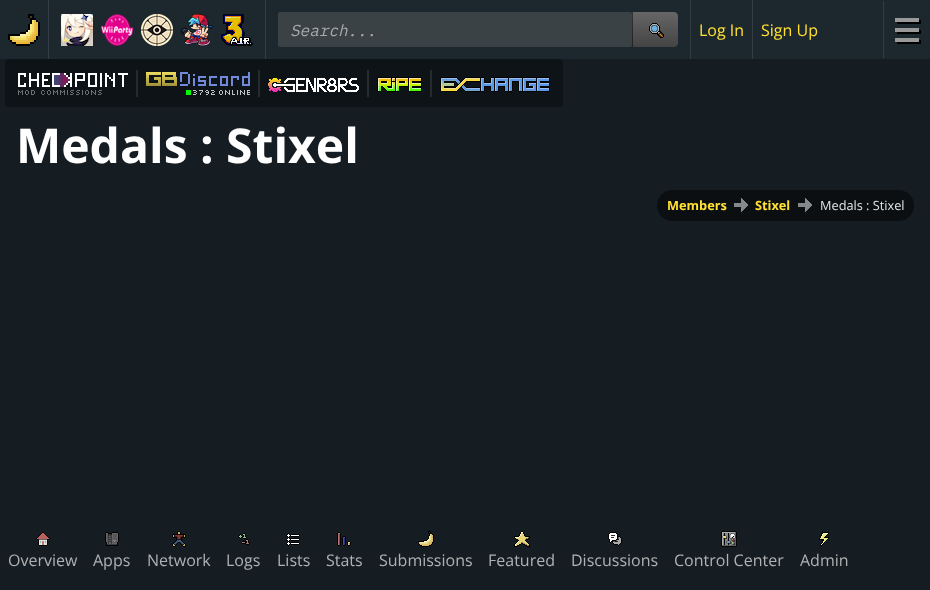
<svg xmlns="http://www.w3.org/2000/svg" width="930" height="590">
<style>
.a{font:italic 16px IBM Plex Mono;fill:#a6aaac}
.b{font:16px Open Sans;fill:#ffe033}
.c{font:bold 48px Open Sans;fill:#fff}
.d{font:bold 12.75px Open Sans;fill:#ffe033}
.e{font:12.75px Open Sans;fill:#e2e2e2}
.f{font:16px Open Sans;fill:#afb1b2}
</style>
<defs>
<linearGradient id="g1" gradientUnits="userSpaceOnUse" x1="656" y1="12" x2="656" y2="47"><stop offset="0" stop-color="#666"/><stop offset="1" stop-color="#444"/></linearGradient>
<linearGradient id="g2" gradientUnits="userSpaceOnUse" x1="656" y1="12" x2="656" y2="47"><stop offset="0" stop-color="#333"/><stop offset="1" stop-color="#222"/></linearGradient>
</defs>
<rect width="100%" height="100%" fill="#151d23"/>
<path fill="#1c272e" d="M0 0h930v59H0z"/>
<image href="1.png" x="8" y="14" width="32" height="32"/>
<path fill="#333d43" d="M48 0h1v59H48z"/>
<image href="2.png" x="61" y="14" width="32" height="32"/>
<image href="3.png" x="101" y="14" width="32" height="32"/>
<image href="4.png" x="141" y="14" width="32" height="32"/>
<image href="5.png" x="181" y="14" width="32" height="32"/>
<image href="6.png" x="221" y="14" width="32" height="32"/>
<path fill="#333d43" d="M265 0h1v59H265z"/>
<rect fill="#3a4246" x="278" y="12" width="354" height="35" rx="2"/>
<path fill="url(#g1)" d="M632 12h42c2 0 4 2 4 4v27c0 2-2 4-4 4h-42z"/>
<path fill="url(#g2)" d="M632 12h1v35H632z"/>
<image href="7.png" x="649" y="23" width="15" height="15"/>
<path fill="#333d43" d="M690 0h1v59H690z"/>
<path fill="#333d43" d="M752 0h1v59H752z"/>
<path fill="#333d43" d="M883 1h1v57H883z"/>
<image href="8.png" x="895" y="18" width="26" height="26"/>
<rect fill="#0b0f12" x="657" y="190" width="257" height="31" rx="15.5"/>
<image href="9.png" x="734" y="198" width="14" height="14"/>
<image href="9.png" x="798" y="198" width="14" height="14"/>
<image href="10.png" x="36" y="532" width="14" height="14"/>
<image href="11.png" x="105" y="532" width="14" height="14"/>
<image href="12.png" x="172" y="531" width="14" height="16"/>
<image href="13.png" x="238" y="533" width="12" height="12"/>
<image href="14.png" x="286" y="533" width="14" height="13"/>
<image href="15.png" x="337" y="532" width="14" height="14"/>
<image href="16.png" x="418" y="531" width="16" height="16"/>
<image href="17.png" x="514" y="531" width="16" height="16"/>
<image href="18.png" x="608" y="532" width="14" height="14"/>
<image href="19.png" x="721" y="531" width="16" height="16"/>
<image href="20.png" x="819" y="532" width="10" height="14"/>
<rect fill="#0e1317" x="5" y="59" width="558" height="48" rx="4"/>
<image href="21.png" x="18" y="73" width="110" height="22"/>
<path fill="#262b2e" d="M136 70h2v27H136z"/>
<image href="22.png" x="146" y="72" width="104" height="14"/>
<path fill="#00ff03" d="M186 90h5v5H186z"/>
<image href="23.png" x="193" y="90" width="4" height="5"/>
<image href="24.png" x="199" y="90" width="4" height="5"/>
<image href="25.png" x="205" y="90" width="4" height="5"/>
<image href="26.png" x="211" y="90" width="4" height="5"/>
<image href="27.png" x="219" y="90" width="31" height="5"/>
<path fill="#262b2e" d="M258 70h2v27H258z"/>
<image href="28.png" x="268" y="78" width="91" height="14"/>
<path fill="#262b2e" d="M367 70h2v27H367z"/>
<image href="29.png" x="377" y="77" width="45" height="15"/>
<path fill="#262b2e" d="M430 70h2v27H430z"/>
<image href="30.png" x="440" y="77" width="110" height="15"/>
<text class="a" x="290" y="36">Search...</text>
<text class="b" x="699" y="36">Log In</text>
<text class="b" x="761" y="36">Sign Up</text>
<text class="c" x="16" y="163">Medals : Stixel</text>
<text class="d" x="667" y="210">Members</text>
<text class="d" x="755" y="210">Stixel</text>
<text class="e" x="820" y="210">Medals : Stixel</text>
<text class="f" x="8" y="566">Overview</text>
<text class="f" x="93" y="566">Apps</text>
<text class="f" x="147" y="566">Network</text>
<text class="f" x="226" y="566">Logs</text>
<text class="f" x="277" y="566">Lists</text>
<text class="f" x="326" y="566">Stats</text>
<text class="f" x="379" y="566">Submissions</text>
<text class="f" x="488" y="566">Featured</text>
<text class="f" x="571" y="566">Discussions</text>
<text class="f" x="674" y="566">Control Center</text>
<text class="f" x="800" y="566">Admin</text>
</svg>
